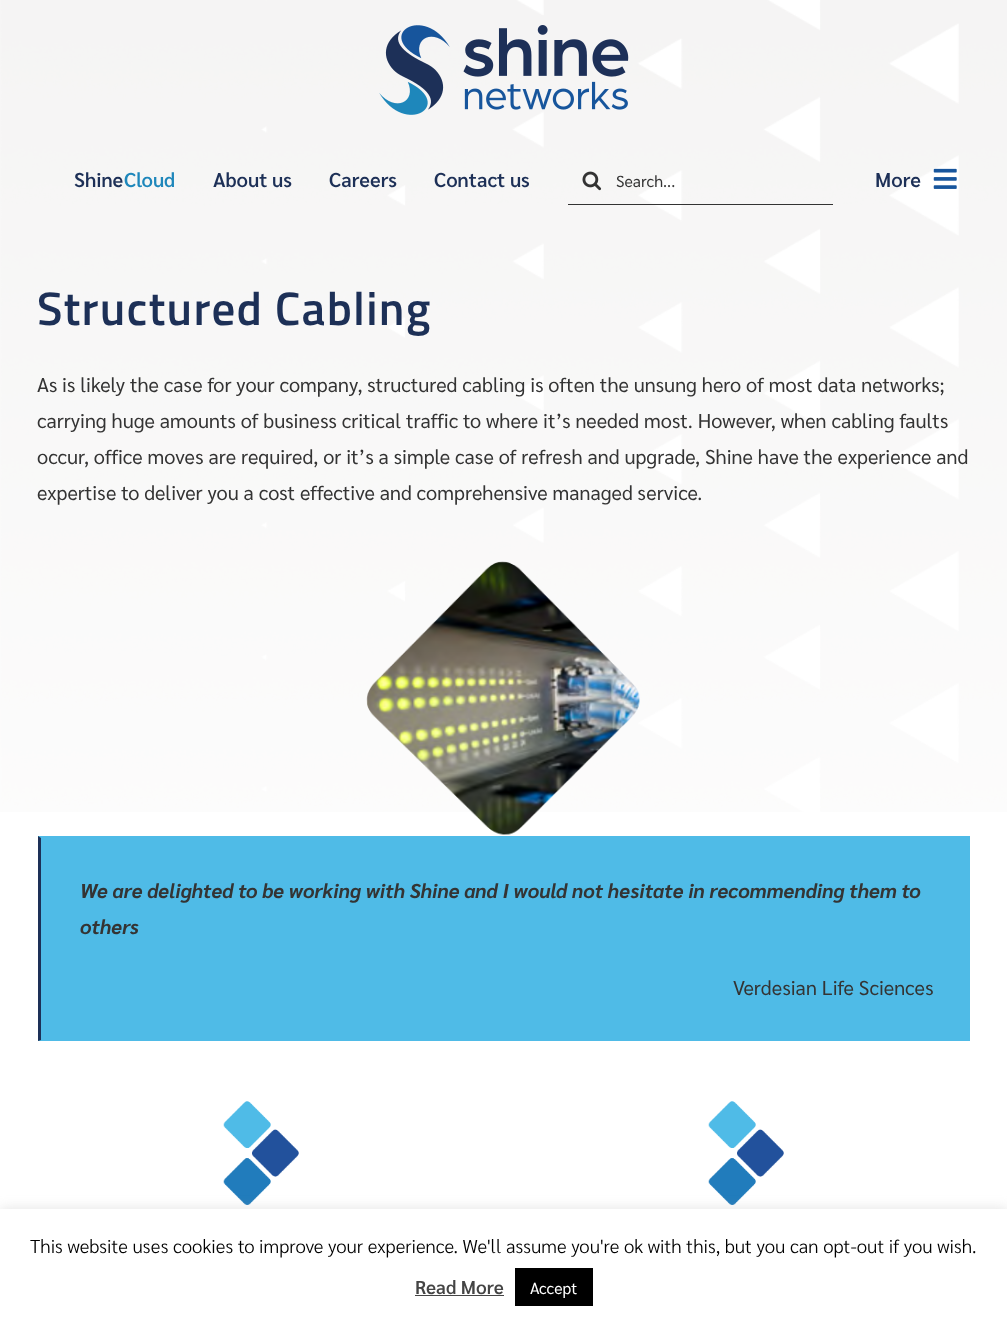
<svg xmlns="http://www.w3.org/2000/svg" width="1007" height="1321">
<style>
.a{font:600 20px Sarabun;fill:#1d3057}
.b{font:600 20px Sarabun;fill:#1e87bb}
.c{font:16px Sarabun;fill:#343434}
.d{font:600 47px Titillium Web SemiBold;letter-spacing:1.25px;fill:#1d3057}
.e{font:20px Sarabun;fill:#343434}
.f{font:italic bold 20px Sarabun;fill:#343434}
.g{font:300 18.75px Sarabun;fill:#000}
.h{font:600 18.75px Sarabun;fill:#444}
.i{font:16px Sarabun;fill:#fff}
</style>
<rect width="100%" height="100%" fill="#fff"/>
<image href="4.png" x="0" y="0" width="1007" height="812"/>
<image href="1.png" x="379" y="25" width="250" height="90"/>
<image href="2.png" x="582" y="171" width="20" height="20"/>
<path fill="#333" d="M568 204h265v1H568z"/>
<image href="3.png" x="933" y="168" width="24" height="21"/>
<image href="5.png" x="366" y="561" width="274" height="274"/>
<path fill="#4fbbe7" d="M38 836h932v205H38z"/>
<path fill="#1d3057" d="M38 1041v-205l3 2v202z"/>
<image href="6.png" x="223" y="1101" width="76" height="104"/>
<image href="6.png" x="708" y="1101" width="76" height="104"/>
<path fill="#acabab4d" filter="blur(6px)" d="M0 1208h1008v112H0z"/>
<path fill="#fff" d="M0 1209h1007v112H0z"/>
<path fill="#444" d="M415 1295h89v1H415z"/>
<path fill="#000" d="M515 1268h78v38H515z"/>
<text class="a" x="74" y="187">Shine</text>
<text class="b" x="124" y="187">Cloud</text>
<text class="a" x="213" y="187">About us</text>
<text class="a" x="329" y="187">Careers</text>
<text class="a" x="434" y="187">Contact us</text>
<text class="c" x="616" y="187">Search...</text>
<text class="a" x="875" y="187">More</text>
<text class="d" x="37" y="325">Structured Cabling</text>
<text class="e" x="37" y="392">As is likely the case for your company, structured cabling is often the unsung hero of most data networks;</text>
<text class="e" x="37" y="428">carrying huge amounts of business critical traffic to where it’s needed most. However, when cabling faults</text>
<text class="e" x="37" y="464">occur, office moves are required, or it’s a simple case of refresh and upgrade, Shine have the experience and</text>
<text class="e" x="37" y="500">expertise to deliver you a cost effective and comprehensive managed service.</text>
<text class="f" x="80" y="898">We are delighted to be working with Shine and I would not hesitate in recommending them to</text>
<text class="f" x="80" y="934">others</text>
<text class="e" x="733" y="995">Verdesian Life Sciences</text>
<text class="g" x="30" y="1253">This website uses cookies to improve your experience. We'll assume you're ok with this, but you can opt-out if you wish.</text>
<text class="h" x="415" y="1294">Read More</text>
<text class="i" x="530" y="1294">Accept</text>
</svg>
